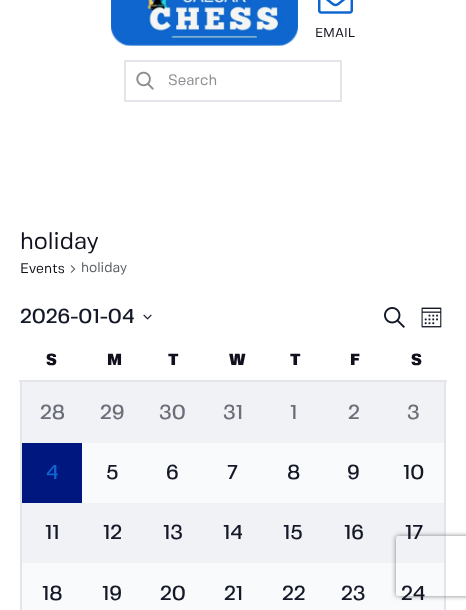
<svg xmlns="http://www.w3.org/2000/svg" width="466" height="610">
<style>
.a{font:13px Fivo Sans;fill:#12101c}
.b{font:15px Fivo Sans;fill:#8b8d91}
.c{font:24px Fivo Sans;fill:#12101c}
.d{font:14px Fivo Sans;fill:#12101c}
.e{font:14px Fivo Sans;fill:#5a5e61}
.f{font:500 20px Fivo Sans;fill:#141827}
.g{font:900 16px Fivo Sans;fill:#12101c}
.h{font:500 20px Fivo Sans;fill:#6c6f79}
.i{font:500 20px Fivo Sans;fill:#0e65ce}
</style>
<defs>
<clipPath id="clip1"><path d="M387 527h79v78h-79zm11 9h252c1 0 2 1 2 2v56c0 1-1 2-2 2h-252c-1 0-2-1-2-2v-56c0-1 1-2 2-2z" clip-rule="evenodd"/></clipPath>
</defs>
<rect width="100%" height="100%" fill="#fff"/>
<image href="1.png" x="111" y="0" width="187" height="46"/>
<image href="2.png" x="318" y="0" width="35" height="14"/>
<path fill="none" stroke="#e3e5ea" stroke-width="2" d="M125 61h216v40H125z"/>
<image href="3.png" x="136" y="71" width="18" height="19"/>
<image href="4.png" x="70" y="265" width="6" height="8"/>
<image href="5.png" x="143" y="314" width="9" height="6"/>
<image href="6.png" x="384" y="307" width="21" height="21"/>
<image href="7.png" x="421" y="307" width="21" height="21"/>
<path fill="#e3e5ea" d="M19 380h428v2H19z"/>
<path fill="#e3e5ea" d="M444 382h2v228H444z"/>
<path fill="#e3e5ea" d="M20 382h2v228H20z"/>
<path fill="#f0f2f5" d="M22 382h422v61H22z"/>
<path fill="#001780" d="M22 443h60v60H22z"/>
<path fill="#f9fafb" d="M82 443h362v60H82z"/>
<path fill="#f0f2f5" d="M22 503h422v60H22z"/>
<path fill="#f9fafb" d="M22 563h422v47H22z"/>
<g clip-path="url(#clip1)">
<rect fill="#808080" filter="blur(2.5px)" x="396" y="536" width="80" height="60" rx="2"/>
</g>
<text class="a" x="315" y="37">EMAIL</text>
<text class="b" x="168" y="85">Search</text>
<text class="c" x="20" y="249">holiday</text>
<text class="d" x="20" y="273">Events</text>
<text class="e" x="81" y="272">holiday</text>
<text class="f" x="20" y="323">2026-01-04</text>
<text class="g" x="46" y="365">S</text>
<text class="g" x="107" y="365">M</text>
<text class="g" x="168" y="365">T</text>
<text class="g" x="229" y="365">W</text>
<text class="g" x="290" y="365">T</text>
<text class="g" x="350" y="365">F</text>
<text class="g" x="411" y="365">S</text>
<text class="h" x="40" y="419">28</text>
<text class="h" x="100" y="419">29</text>
<text class="h" x="159" y="419">30</text>
<text class="h" x="223" y="419">31</text>
<text class="h" x="290" y="419">1</text>
<text class="h" x="348" y="419">2</text>
<text class="h" x="407" y="419">3</text>
<text class="i" x="46" y="479">4</text>
<text class="f" x="106" y="479">5</text>
<text class="f" x="166" y="479">6</text>
<text class="f" x="227" y="479">7</text>
<text class="f" x="287" y="479">8</text>
<text class="f" x="347" y="479">9</text>
<text class="f" x="403" y="479">10</text>
<text class="f" x="45" y="539">11</text>
<text class="f" x="103" y="539">12</text>
<text class="f" x="163" y="539">13</text>
<text class="f" x="223" y="539">14</text>
<text class="f" x="283" y="539">15</text>
<text class="f" x="344" y="539">16</text>
<text class="f" x="405" y="539">17</text>
<text class="f" x="42" y="600">18</text>
<text class="f" x="102" y="600">19</text>
<text class="f" x="160" y="600">20</text>
<text class="f" x="224" y="600">21</text>
<text class="f" x="282" y="600">22</text>
<text class="f" x="341" y="600">23</text>
<text class="f" x="401" y="600">24</text>
</svg>
